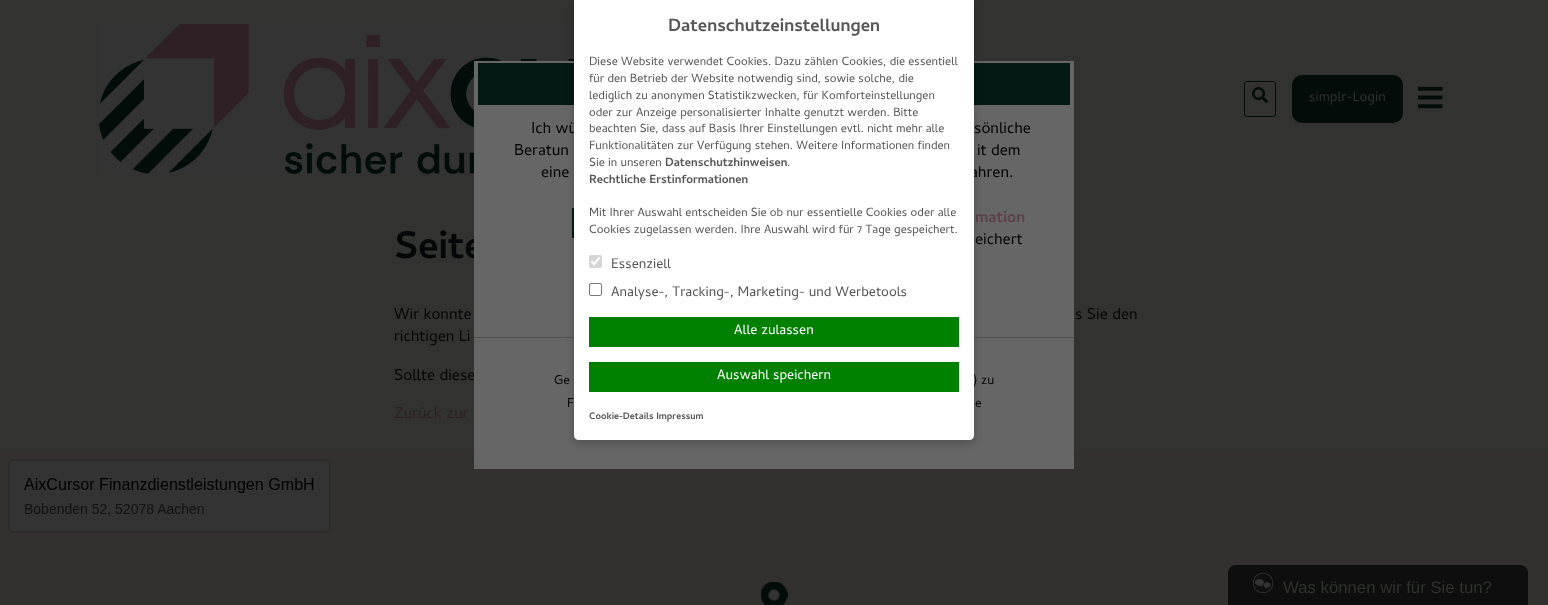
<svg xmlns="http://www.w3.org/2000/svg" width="1548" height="605">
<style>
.a{font:14px Cambay;fill:#2f322e}
.b{font:bold 39px Cambay;fill:#050607}
.c{font:16px Cambay;fill:#050607}
.d{font:16px Cambay;fill:#2f2025}
.e{font:16px Cambay;fill:#000}
.f{font:bold 16px Cambay;fill:#5e404a}
.g{font:13px Cambay;fill:#000}
.h{font:bold 9.6px Cambay;fill:#555}
.i{font:14px Cambay;fill:#fff}
.j{font:14px Cambay;fill:#555}
.k{font:12px Cambay;fill:#555}
.l{font:bold 12px Cambay;fill:#555}
.m{font:bold 18px Cambay;fill:#555}
.n{font:16.75px Liberation Sans;fill:#2f322e}
</style>
<rect width="100%" height="100%" fill="#323231"/>
<image href="1.png" x="99" y="24" width="475" height="150"/>
<rect fill="none" stroke="#020d0a" x="1244.5" y="81.5" width="31" height="35" rx="2.5"/>
<image href="2.png" x="1252" y="87" width="16" height="16"/>
<rect fill="#020d0a" x="1292" y="75" width="111" height="48" rx="10"/>
<image href="3.png" x="1418" y="86" width="25" height="23"/>
<image href="4.png" x="0" y="451" width="1548" height="154"/>
<path fill="#0e0e0e" d="M1236 565h284c4.5 0 8 3.5 8 8v32h-300v-32c0-4.5 3.5-8 8-8z"/>
<image href="5.png" x="1253" y="573" width="20" height="20"/>
<text class="a" x="1309" y="101">simplr-Login</text>
<text class="b" x="394" y="258">Seite</text>
<text class="c" x="394" y="319">Wir konnte</text>
<text class="c" x="1075" y="319">s Sie den</text>
<text class="c" x="394" y="341">richtigen Li</text>
<text class="c" x="394" y="380">Sollte diese</text>
<text class="d" x="394" y="418">Zurück zur</text>
<path fill="#666" d="M474 61h600v408H474z"/>
<path fill="#041914" d="M478 63h592v42H478z"/>
<text class="e" x="531" y="133">Ich wü</text>
<text class="e" x="514" y="155">Beratun</text>
<text class="e" x="541" y="177">eine</text>
<path fill="#041914" d="M572 208h2v30H572z"/>
<text class="e" x="974" y="133">sönliche</text>
<text class="e" x="977" y="155">it dem</text>
<text class="e" x="970" y="177">ahren.</text>
<text class="f" x="975" y="222">mation</text>
<text class="e" x="975" y="244">eichert</text>
<path fill="#525252" d="M474 337h600v1H474z"/>
<rect fill="#00000033" filter="blur(4px)" x="574" y="4" width="400" height="440" rx="5"/>
<text class="g" x="554" y="384">Ge</text>
<text class="g" x="973" y="384">) zu</text>
<path fill="#fff" d="M574 0h400v435c0 3-2 5-5 5h-390c-3 0-5-2-5-5z"/>
<text class="h" x="589" y="419">Cookie-Details Impressum</text>
<path fill="#008000" d="M589 362h370v30H589z"/>
<text class="i" x="717" y="379">Auswahl speichern</text>
<path fill="#008000" d="M589 317h370v30H589z"/>
<text class="i" x="734" y="334">Alle zulassen</text>
<text class="j" x="611" y="296">Analyse-, Tracking-, Marketing- und Werbetools</text>
<rect fill="none" stroke="#767676" x="589.5" y="283.5" width="12" height="12" rx="1.5"/>
<text class="j" x="611" y="268">Essenziell</text>
<rect fill="#d6d6d6" x="589" y="255" width="13" height="13" rx="2"/>
<path fill="none" stroke="#fff" stroke-width="2.1" d="M591.5 261.5l2.5 2.5l5.5-6.5"/>
<text class="k" x="589" y="233">Cookies zugelassen werden. Ihre Auswahl wird für 7 Tage gespeichert.</text>
<text class="k" x="589" y="216">Mit Ihrer Auswahl entscheiden Sie ob nur essentielle Cookies oder alle</text>
<text class="l" x="589" y="183">Rechtliche Erstinformationen</text>
<text class="k" x="787" y="166">.</text>
<text class="l" x="665" y="166">Datenschutzhinweisen</text>
<text class="k" x="589" y="166">Sie in unseren</text>
<text class="k" x="589" y="149">Funktionalitäten zur Verfügung stehen. Weitere Informationen finden</text>
<text class="k" x="589" y="132">beachten Sie, dass auf Basis Ihrer Einstellungen evtl. nicht mehr alle</text>
<text class="k" x="589" y="116">oder zur Anzeige personalisierter Inhalte genutzt werden. Bitte</text>
<text class="k" x="589" y="99">lediglich zu anonymen Statistikzwecken, für Komforteinstellungen</text>
<text class="k" x="589" y="82">für den Betrieb der Website notwendig sind, sowie solche, die</text>
<text class="k" x="589" y="65">Diese Website verwendet Cookies. Dazu zählen Cookies, die essentiell</text>
<text class="m" x="668" y="31">Datenschutzeinstellungen</text>
<text class="g" x="567" y="407">F</text>
<text class="g" x="975" y="407">e</text>
<text class="n" x="1283" y="593">Was können wir für Sie tun?</text>
</svg>
